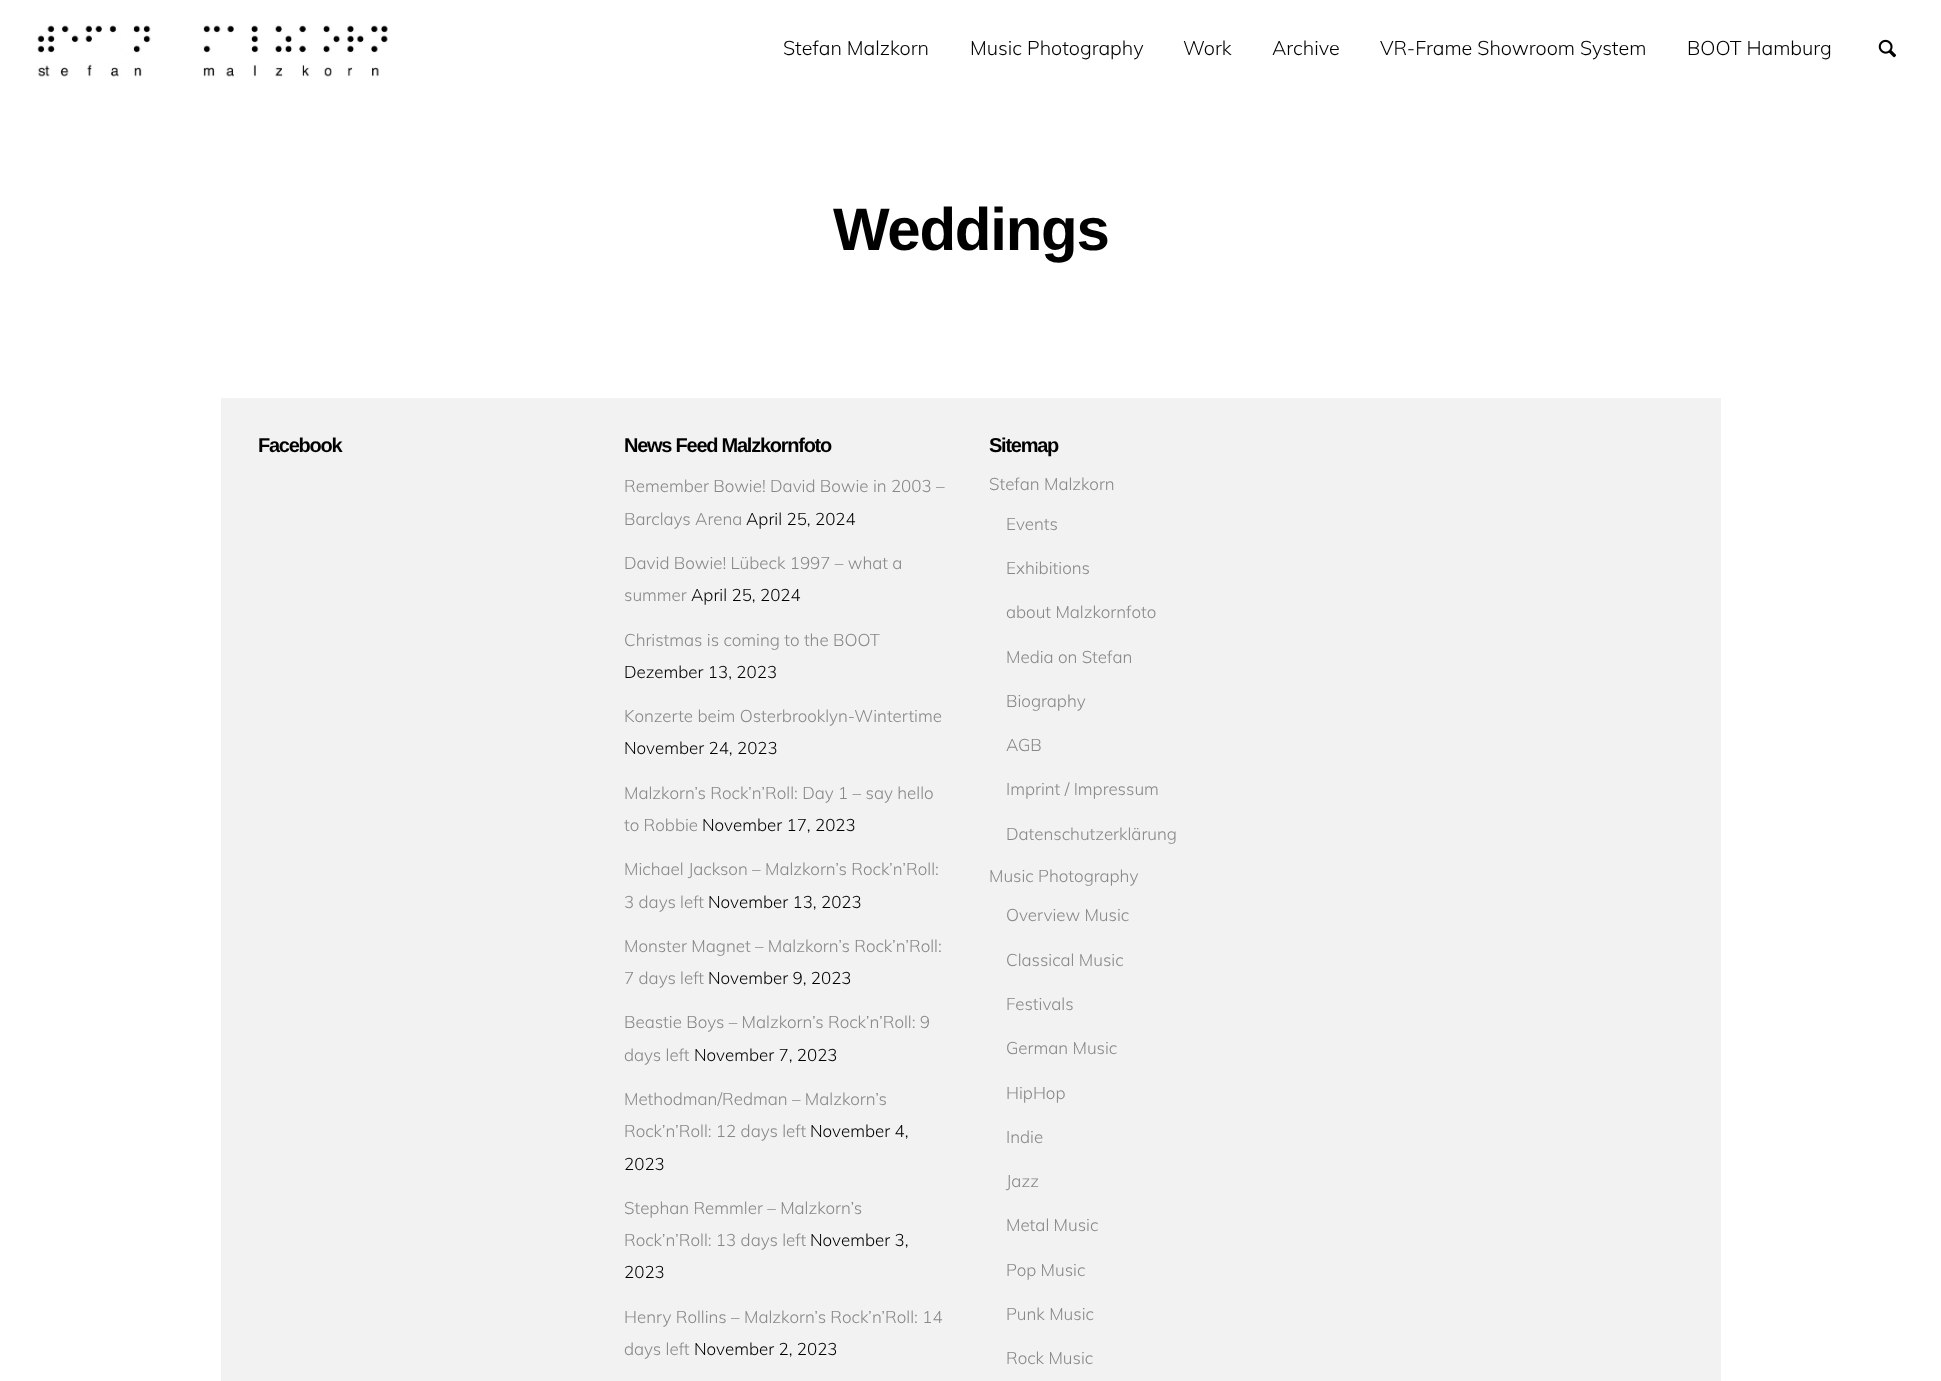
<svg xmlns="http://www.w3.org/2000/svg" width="1941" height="1381">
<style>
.a{font:300 19.75px Muli;fill:#000}
.b{font:bold 60px Liberation Sans;letter-spacing:-1.25px;fill:#000}
.c{font:bold 20px Liberation Sans;letter-spacing:-1.25px;fill:#000}
.d{font:300 17px Muli;fill:#888}
.e{font:300 17px Muli;fill:#000}
</style>
<rect width="100%" height="100%" fill="#fff"/>
<image href="1.png" x="37" y="25" width="351" height="52"/>
<image href="2.png" x="1878" y="39" width="18" height="19"/>
<path fill="#f2f2f2" d="M221 398h1500v983H221z"/>
<text class="a" x="783" y="55">Stefan Malzkorn</text>
<text class="a" x="970" y="55">Music Photography</text>
<text class="a" x="1183" y="55">Work</text>
<text class="a" x="1272" y="55">Archive</text>
<text class="a" x="1380" y="55">VR-Frame Showroom System</text>
<text class="a" x="1687" y="55">BOOT Hamburg</text>
<text class="b" x="833" y="250">Weddings</text>
<text class="c" x="258" y="452">Facebook</text>
<text class="c" x="624" y="452">News Feed Malzkornfoto</text>
<text class="d" x="624" y="492">Remember Bowie! David Bowie in 2003 –</text>
<text class="d" x="624" y="525">Barclays Arena</text>
<text class="e" x="746" y="525">April 25, 2024</text>
<text class="d" x="624" y="569">David Bowie! Lübeck 1997 – what a</text>
<text class="d" x="624" y="601">summer</text>
<text class="e" x="691" y="601">April 25, 2024</text>
<text class="d" x="624" y="646">Christmas is coming to the BOOT</text>
<text class="e" x="624" y="678">Dezember 13, 2023</text>
<text class="d" x="624" y="722">Konzerte beim Osterbrooklyn-Wintertime</text>
<text class="e" x="624" y="754">November 24, 2023</text>
<text class="d" x="624" y="799">Malzkorn’s Rock’n’Roll: Day 1 – say hello</text>
<text class="d" x="624" y="831">to Robbie</text>
<text class="e" x="702" y="831">November 17, 2023</text>
<text class="d" x="624" y="875">Michael Jackson – Malzkorn’s Rock’n’Roll:</text>
<text class="d" x="624" y="908">3 days left</text>
<text class="e" x="708" y="908">November 13, 2023</text>
<text class="d" x="624" y="952">Monster Magnet – Malzkorn’s Rock’n’Roll:</text>
<text class="d" x="624" y="984">7 days left</text>
<text class="e" x="708" y="984">November 9, 2023</text>
<text class="d" x="624" y="1028">Beastie Boys – Malzkorn’s Rock’n’Roll: 9</text>
<text class="d" x="624" y="1061">days left</text>
<text class="e" x="694" y="1061">November 7, 2023</text>
<text class="d" x="624" y="1105">Methodman/Redman – Malzkorn’s</text>
<text class="d" x="624" y="1137">Rock’n’Roll: 12 days left</text>
<text class="e" x="810" y="1137">November 4,</text>
<text class="e" x="624" y="1170">2023</text>
<text class="d" x="624" y="1214">Stephan Remmler – Malzkorn’s</text>
<text class="d" x="624" y="1246">Rock’n’Roll: 13 days left</text>
<text class="e" x="810" y="1246">November 3,</text>
<text class="e" x="624" y="1278">2023</text>
<text class="d" x="624" y="1323">Henry Rollins – Malzkorn’s Rock’n’Roll: 14</text>
<text class="d" x="624" y="1355">days left</text>
<text class="e" x="694" y="1355">November 2, 2023</text>
<text class="c" x="989" y="452">Sitemap</text>
<text class="d" x="989" y="490">Stefan Malzkorn</text>
<text class="d" x="1006" y="530">Events</text>
<text class="d" x="1006" y="574">Exhibitions</text>
<text class="d" x="1006" y="618">about Malzkornfoto</text>
<text class="d" x="1006" y="663">Media on Stefan</text>
<text class="d" x="1006" y="707">Biography</text>
<text class="d" x="1006" y="751">AGB</text>
<text class="d" x="1006" y="795">Imprint / Impressum</text>
<text class="d" x="1006" y="840">Datenschutzerklärung</text>
<text class="d" x="989" y="882">Music Photography</text>
<text class="d" x="1006" y="921">Overview Music</text>
<text class="d" x="1006" y="966">Classical Music</text>
<text class="d" x="1006" y="1010">Festivals</text>
<text class="d" x="1006" y="1054">German Music</text>
<text class="d" x="1006" y="1099">HipHop</text>
<text class="d" x="1006" y="1143">Indie</text>
<text class="d" x="1006" y="1187">Jazz</text>
<text class="d" x="1006" y="1231">Metal Music</text>
<text class="d" x="1006" y="1276">Pop Music</text>
<text class="d" x="1006" y="1320">Punk Music</text>
<text class="d" x="1006" y="1364">Rock Music</text>
</svg>
